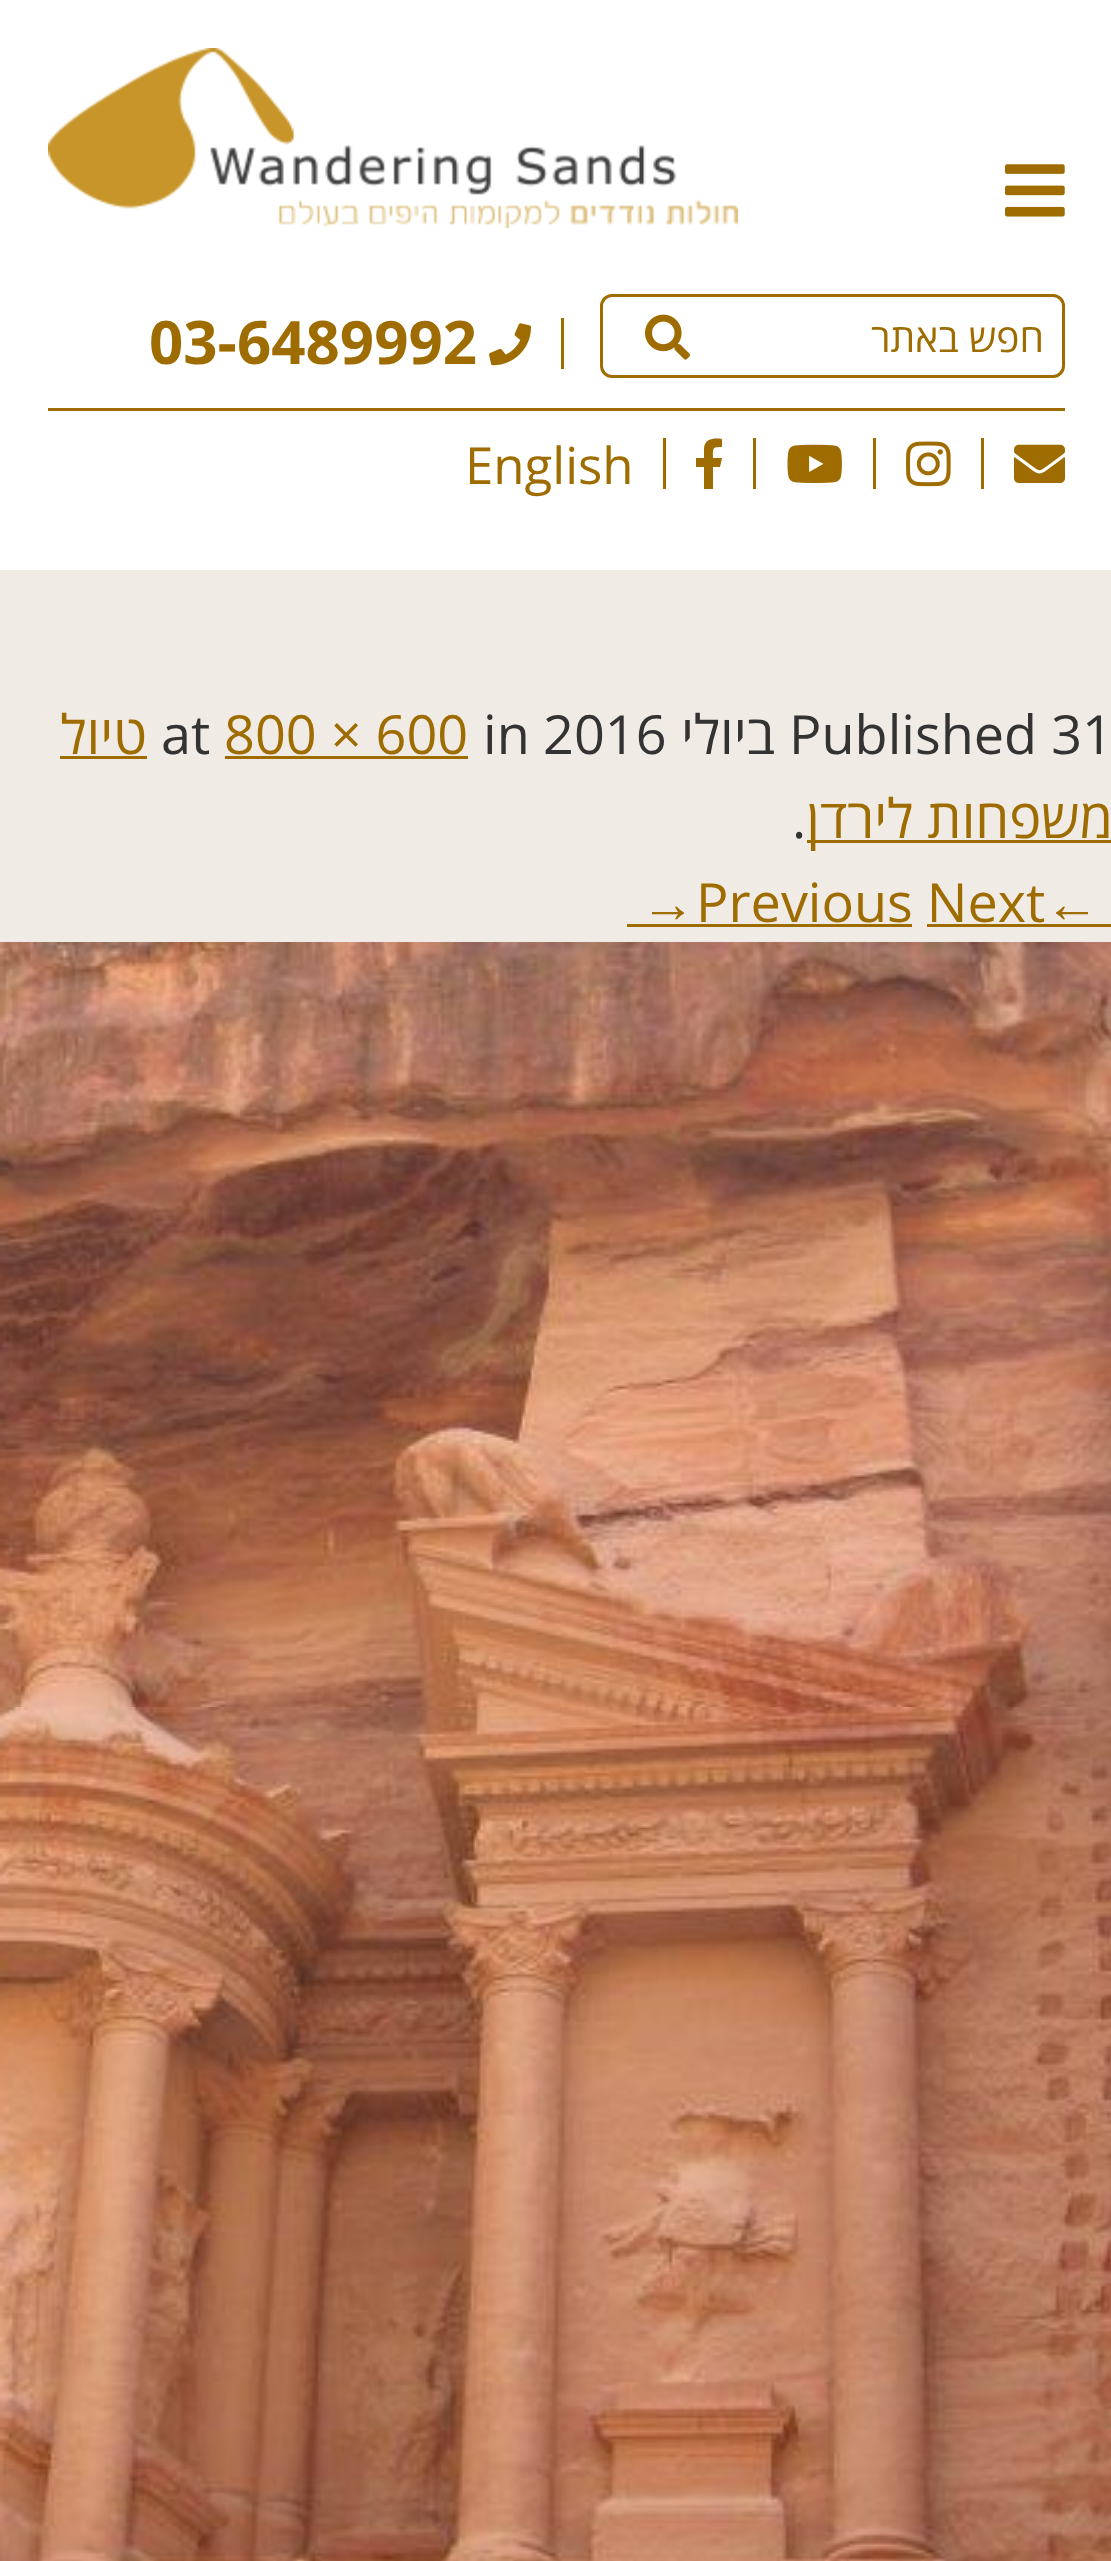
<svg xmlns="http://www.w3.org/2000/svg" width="1111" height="2561">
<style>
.a{font:bold 60px Open Sans;fill:#9e6c00}
.b{font:39px Open Sans;direction:rtl;fill:#9e6c00}
.c{font:51px Open Sans;fill:#9e6c00}
.d{font:54px Open Sans;direction:rtl;fill:#9e6c00}
.e{font:54px Open Sans;fill:#333}
.f{font:54px Open Sans;fill:#9e6c00}
.g{font:54px Open Sans;direction:rtl;fill:#333}
.h{font:54px Liberation Sans;fill:#9e6c00}
</style>
<rect width="100%" height="100%" fill="#fff"/>
<image href="1.png" x="48" y="48" width="690" height="180"/>
<image href="2.png" x="1005" y="164" width="60" height="53"/>
<path fill="#9e6c00" d="M48 408h1017v3H48z"/>
<path fill="#9e6c00" d="M561 318h3v51H561z"/>
<image href="3.png" x="489" y="323" width="42" height="43"/>
<rect fill="none" stroke="#9e6c00" stroke-width="3" x="601.5" y="295.5" width="462" height="81" rx="10.5"/>
<image href="4.png" x="645" y="314" width="45" height="46"/>
<path fill="#9e6c00" d="M663 438h3v51H663z"/>
<path fill="#9e6c00" d="M753 438h3v51H753z"/>
<path fill="#9e6c00" d="M704 489v-22h-8v-9h8v-10c1-10 11-10 18-9v8c-10 0-9 1-9 11h9l-2 9h-7v22z"/>
<path fill="#9e6c00" d="M873 438h3v51H873z"/>
<image href="5.png" x="787" y="444" width="55" height="39"/>
<path fill="#9e6c00" d="M981 438h3v51H981z"/>
<image href="6.png" x="906" y="441" width="45" height="46"/>
<image href="7.png" x="1014" y="444" width="51" height="39"/>
<path fill="#f0ebe5" d="M0 570h1111v372H0z"/>
<path fill="#9e6c00" d="M60 756h87v3H60z"/>
<path fill="#9e6c00" d="M225 756h243v3H225z"/>
<path fill="#9e6c00" d="M807 840h304v3H807z"/>
<path fill="#9e6c00" d="M627 924h285v3H627z"/>
<path fill="#9e6c00" d="M927 924h184v3H927z"/>
<image href="8.png" x="0" y="942" width="1111" height="1619"/>
<text class="a" x="149" y="364">03-6489992</text>
<text class="b" x="1044" y="352">חפש באתר</text>
<text class="c" x="465" y="484">English</text>
<text class="d" x="147" y="754">טיול</text>
<text class="e" x="161" y="754">at</text>
<text class="f" x="224" y="754">800 × 600</text>
<text class="e" x="483" y="754">in</text>
<text class="e" x="543" y="754">2016</text>
<text class="g" x="775" y="754">ביולי</text>
<text class="e" x="789" y="754">Published 31</text>
<text class="e" x="792" y="838">.</text>
<text class="d" x="1113" y="838">משפחות לירדן</text>
<text class="h" x="641" y="922">→</text>
<text class="f" x="696" y="922">Previous Next</text>
<text class="h" x="1045" y="922">←</text>
</svg>
